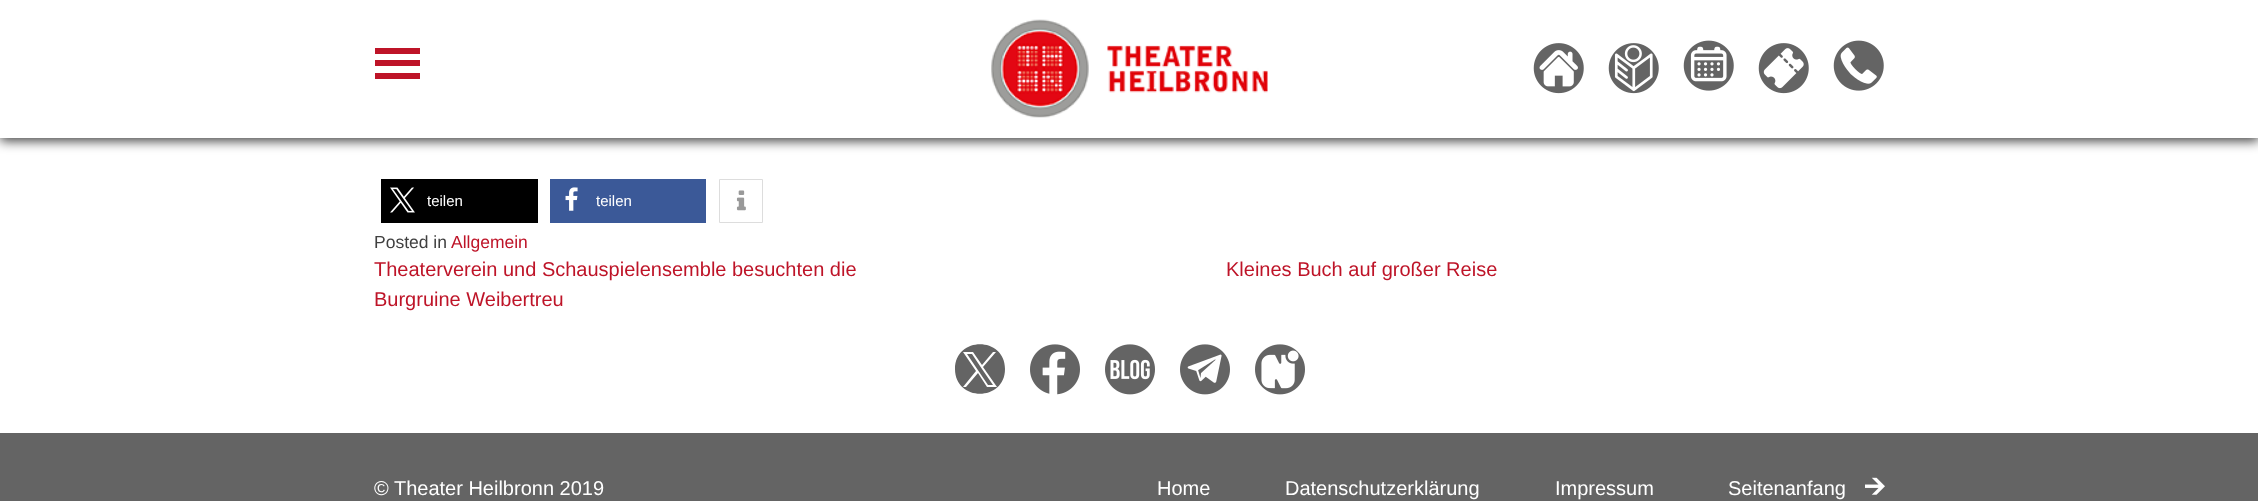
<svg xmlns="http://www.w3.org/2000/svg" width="2258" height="501">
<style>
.a{font:15px Liberation Sans;fill:#fff}
.b{font:17.5px Liberation Sans;fill:#404040}
.c{font:17.5px Liberation Sans;fill:#be1428}
.d{font:20px Liberation Sans;fill:#be1428}
.e{font:20px Liberation Sans;fill:#fff}
</style>
<rect width="100%" height="100%" fill="#fff"/>
<path fill="#000000bf" filter="blur(6px)" d="M0 4h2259v137H0z"/>
<path fill="#fff" d="M0 0h2258v138H0z"/>
<path fill="#be1428" d="M375 48h45v6H375z"/>
<path fill="#be1428" d="M375 60h45v6H375z"/>
<path fill="#be1428" d="M375 73h45v6H375z"/>
<image href="1.png" x="991" y="19" width="277" height="99"/>
<image href="2.png" x="1533" y="43" width="51" height="51"/>
<image href="3.png" x="1608" y="43" width="51" height="51"/>
<image href="4.png" x="1683" y="40" width="51" height="51"/>
<image href="5.png" x="1758" y="43" width="51" height="51"/>
<image href="6.png" x="1833" y="40" width="51" height="51"/>
<path fill="#000" d="M381 179h157v44H381z"/>
<image href="7.png" x="390" y="187" width="25" height="26"/>
<path fill="#3b5998" d="M550 179h156v44H550z"/>
<image href="8.png" x="565" y="187" width="13" height="24"/>
<path fill="none" stroke="#ddd" d="M719.5 179.5h43v43H719.5z"/>
<image href="9.png" x="736" y="190" width="10" height="21"/>
<path fill="#646464" d="M982 369l11 16h-5l-21-31h5zm23 0c0 33-50 33-50 0c0-33 50-33 50 0zm-8 18l-14-20l13-15h-3l-11 13l-9-13h-10l13 19l-13 16h3l12-14l9 14z"/>
<image href="10.png" x="1030" y="344" width="50" height="51"/>
<image href="11.png" x="1105" y="344" width="50" height="51"/>
<image href="12.png" x="1180" y="344" width="50" height="51"/>
<image href="13.png" x="1255" y="344" width="50" height="51"/>
<path fill="#646464" d="M0 433h2258v68H0z"/>
<image href="14.png" x="1865" y="477" width="20" height="18"/>
<text class="a" x="427" y="206">teilen</text>
<text class="a" x="596" y="206">teilen</text>
<text class="b" x="374" y="248">Posted in</text>
<text class="c" x="451" y="248">Allgemein</text>
<text class="d" x="374" y="276">Theaterverein und Schauspielensemble besuchten die</text>
<text class="d" x="374" y="306">Burgruine Weibertreu</text>
<text class="d" x="1226" y="276">Kleines Buch auf großer Reise</text>
<text class="e" x="374" y="495">© Theater Heilbronn 2019</text>
<text class="e" x="1157" y="495">Home</text>
<text class="e" x="1285" y="495">Datenschutzerklärung</text>
<text class="e" x="1555" y="495">Impressum</text>
<text class="e" x="1728" y="495">Seitenanfang</text>
</svg>
